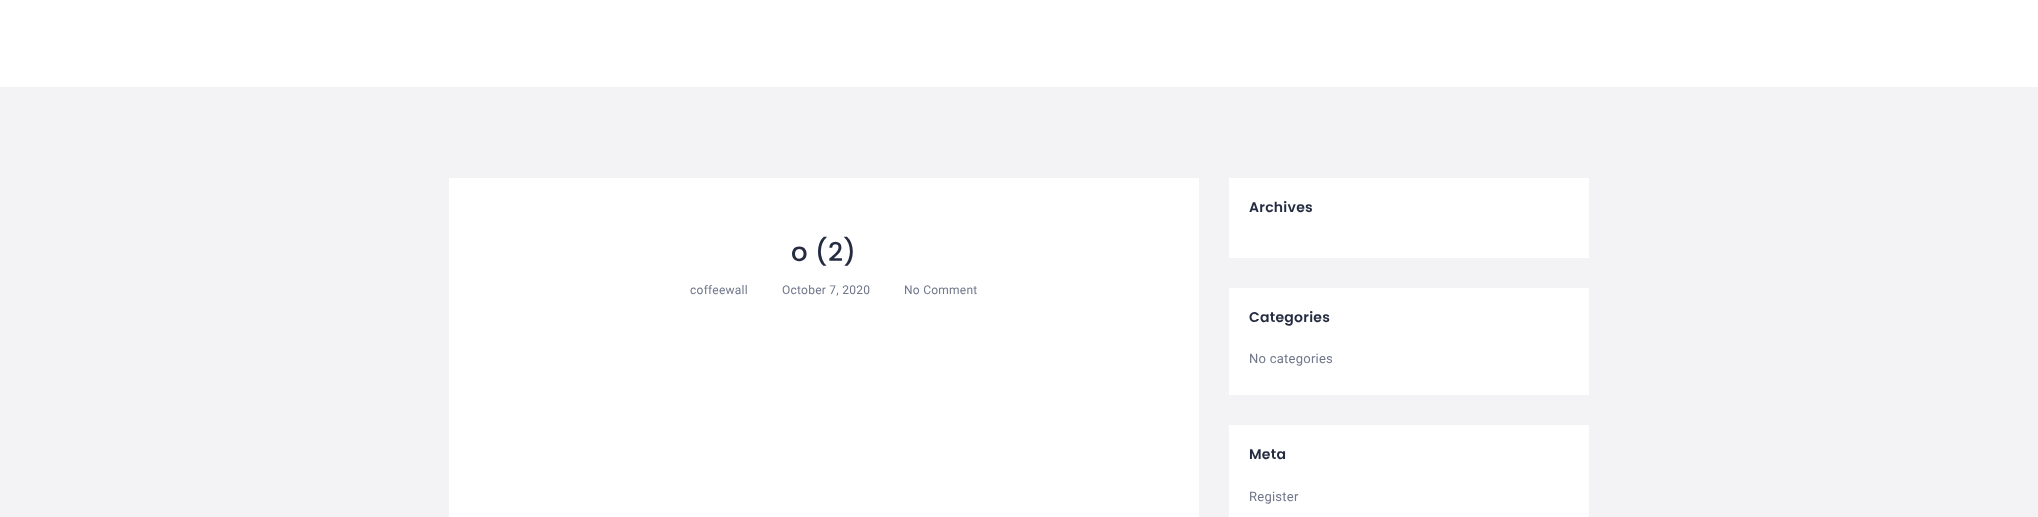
<svg xmlns="http://www.w3.org/2000/svg" width="2038" height="517">
<style>
.a{font:500 26px Poppins;letter-spacing:0.25px;fill:#252c41}
.b{font:12px Roboto;letter-spacing:0.25px;fill:#70778b}
.c{font:600 14px Poppins;letter-spacing:0.25px;fill:#252c41}
.d{font:13px Roboto;letter-spacing:0.25px;fill:#70778b}
</style>
<rect width="100%" height="100%" fill="#fff"/>
<path fill="#f3f3f6" d="M0 87h2038v430H0z"/>
<path fill="#fff" d="M449 178h750v339H449z"/>
<path fill="#fff" d="M1229 178h360v80H1229z"/>
<path fill="#fff" d="M1229 288h360v107H1229z"/>
<path fill="#fff" d="M1229 425h360v92H1229z"/>
<text class="a" x="791" y="261">o (2)</text>
<text class="b" x="690" y="294">coffeewall</text>
<text class="b" x="782" y="294">October 7, 2020</text>
<text class="b" x="904" y="294">No Comment</text>
<text class="c" x="1249" y="212">Archives</text>
<text class="c" x="1249" y="322">Categories</text>
<text class="d" x="1249" y="363">No categories</text>
<text class="c" x="1249" y="459">Meta</text>
<text class="d" x="1249" y="501">Register</text>
</svg>
